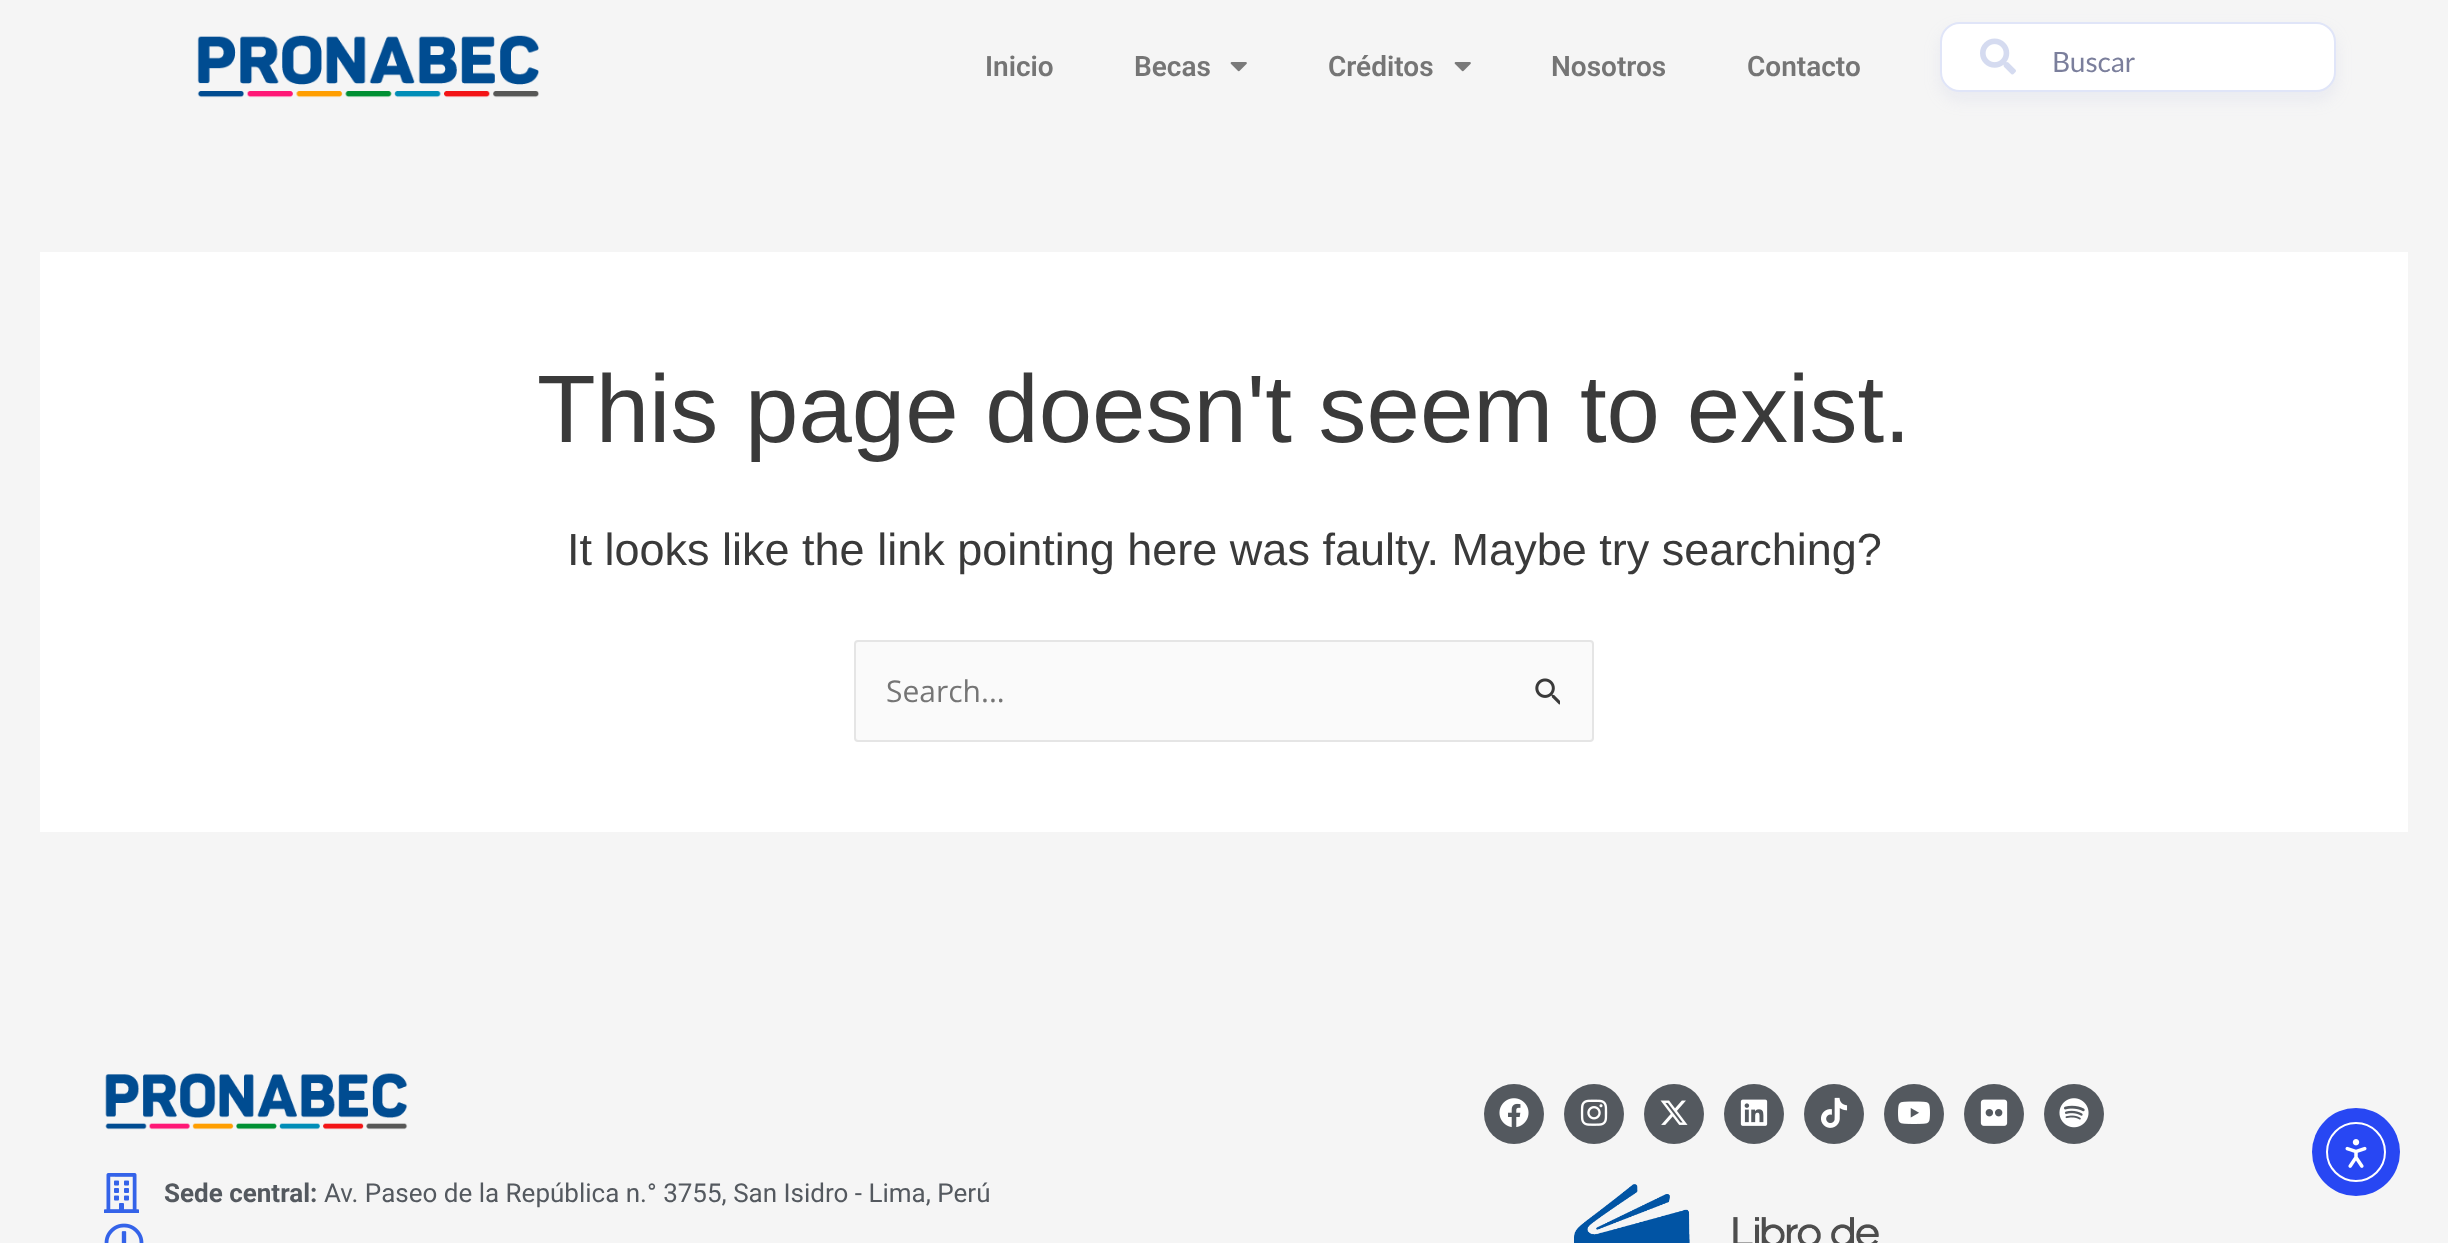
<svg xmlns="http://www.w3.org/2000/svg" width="2448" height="1243">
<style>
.a{font:600 28px Roboto;fill:#757575}
.b{font:28px Lato;fill:#7b7f9c}
.c{font:96px Liberation Sans;fill:#3a3a3a}
.d{font:45px Liberation Sans;fill:#3a3a3a}
.e{font:30px Open Sans;fill:#757575}
.f{font:bold 26px Roboto;fill:#54595f}
.g{font:26px Roboto;fill:#54595f}
</style>
<rect width="100%" height="100%" fill="#f5f5f5"/>
<image href="1.png" x="197" y="35" width="342" height="63"/>
<image href="2.png" x="1230" y="62" width="17" height="10"/>
<image href="2.png" x="1454" y="62" width="17" height="10"/>
<rect fill="#a5aed526" filter="blur(8px)" x="1940" y="30" width="396" height="70" rx="20"/>
<rect fill="#fff" stroke="#e0e5f8" stroke-width="2" x="1941" y="23" width="394" height="68" rx="19"/>
<image href="3.png" x="1980" y="38" width="36" height="37"/>
<path fill="#fff" d="M40 252h2368v580H40z"/>
<rect fill="#fafafa" stroke="#e5e5e5" stroke-width="2" x="855" y="641" width="738" height="100" rx="3"/>
<image href="4.png" x="1535" y="678" width="25" height="27"/>
<image href="5.png" x="105" y="1073" width="303" height="57"/>
<image href="6.png" x="104" y="1173" width="35" height="40"/>
<image href="7.png" x="104" y="1223" width="40" height="20"/>
<circle fill="#54595f" cx="1514" cy="1114" r="30"/>
<image href="8.png" x="1499" y="1098" width="30" height="30"/>
<circle fill="#54595f" cx="1594" cy="1114" r="30"/>
<image href="9.png" x="1580" y="1099" width="28" height="27"/>
<circle fill="#54595f" cx="1674" cy="1114" r="30"/>
<image href="10.png" x="1660" y="1100" width="28" height="25"/>
<circle fill="#54595f" cx="1754" cy="1114" r="30"/>
<image href="11.png" x="1740" y="1099" width="28" height="27"/>
<circle fill="#54595f" cx="1834" cy="1114" r="30"/>
<image href="12.png" x="1821" y="1097" width="27" height="31"/>
<circle fill="#54595f" cx="1914" cy="1114" r="30"/>
<image href="13.png" x="1898" y="1101" width="32" height="23"/>
<circle fill="#54595f" cx="1994" cy="1114" r="30"/>
<image href="14.png" x="1980" y="1099" width="28" height="27"/>
<circle fill="#54595f" cx="2074" cy="1114" r="30"/>
<image href="15.png" x="2059" y="1098" width="30" height="30"/>
<image href="16.png" x="1574" y="1184" width="305" height="59"/>
<circle fill="#2847f3" cx="2356" cy="1152" r="44"/>
<circle fill="none" stroke="#fff" stroke-width="2" cx="2356" cy="1152" r="29"/>
<image href="17.png" x="2345" y="1139" width="22" height="29"/>
<text class="a" x="985" y="76">Inicio</text>
<text class="a" x="1134" y="76">Becas</text>
<text class="a" x="1328" y="76">Créditos</text>
<text class="a" x="1551" y="76">Nosotros</text>
<text class="a" x="1747" y="76">Contacto</text>
<text class="b" x="2052" y="72">Buscar</text>
<text class="c" x="537" y="442">This page doesn't seem to exist.</text>
<text class="d" x="567" y="565">It looks like the link pointing here was faulty. Maybe try searching?</text>
<text class="e" x="886" y="702">Search...</text>
<text class="f" x="164" y="1202">Sede central:</text>
<text class="g" x="324" y="1202">Av. Paseo de la República n.° 3755, San Isidro - Lima, Perú</text>
</svg>
